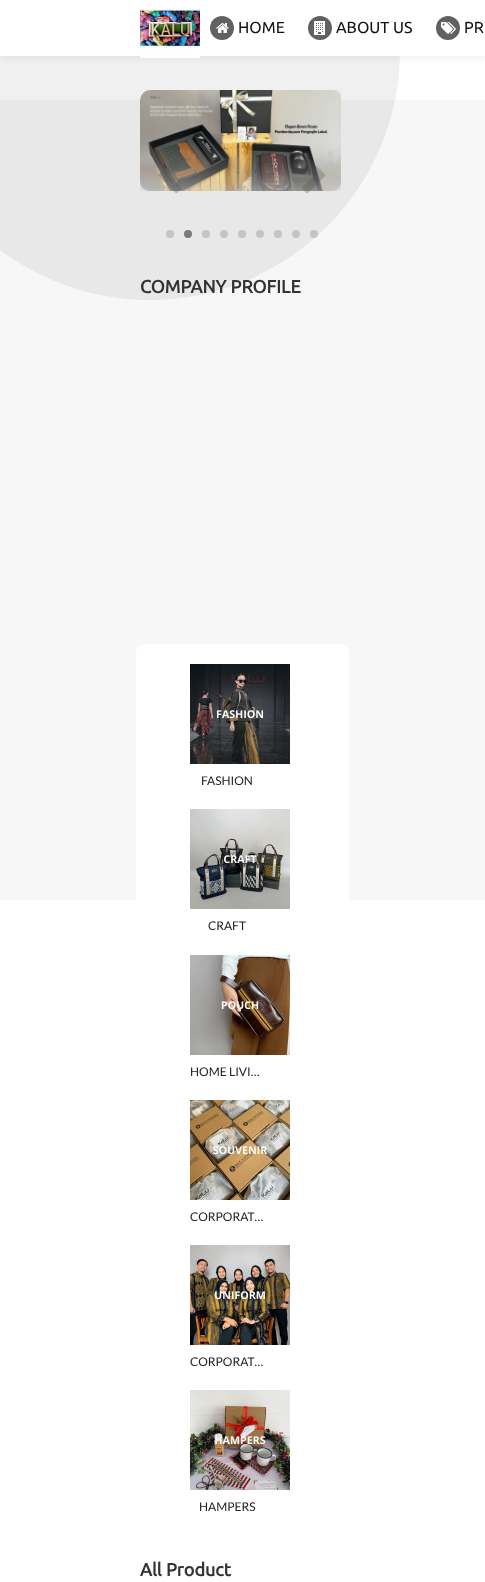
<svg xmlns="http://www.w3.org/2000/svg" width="485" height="1582">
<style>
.a{font:16px Ubuntu;fill:#141215}
.b{font:bold 18px Ubuntu;fill:#333}
.c{font:12px Lato;fill:#222}
</style>
<defs>
<clipPath id="clip1"><path d="M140 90h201v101H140z"/></clipPath>
<clipPath id="clip2"><rect x="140" y="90" width="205" height="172" rx="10"/></clipPath>
</defs>
<rect width="100%" height="100%" fill="#fff"/>
<circle fill="#f0f0f0" cx="150" cy="50" r="250"/>
<path fill="#0000001a" filter="blur(5px)" d="M0 0h485v56H0z"/>
<path fill="#fff" d="M0 0h485v56H0z"/>
<image href="1.png" x="140" y="9" width="60" height="49"/>
<circle fill="#616161" cx="222" cy="28" r="12"/>
<image href="2.png" x="216" y="23" width="13" height="10"/>
<circle fill="#616161" cx="320" cy="28" r="12"/>
<image href="3.png" x="314" y="21" width="11" height="14"/>
<circle fill="#616161" cx="448" cy="28" r="12"/>
<image href="4.png" x="441" y="22" width="15" height="12"/>
<path fill="#00000008" d="M0 100h485v800H0z"/>
<g clip-path="url(#clip1)">
<g clip-path="url(#clip2)">
<rect fill="#00000033" filter="blur(3px)" x="140" y="90" width="201" height="101" rx="10"/>
</g>
</g>
<image href="5.png" x="140" y="90" width="201" height="101"/>
<image href="6.png" x="158" y="160" width="24" height="34"/>
<image href="7.png" x="302" y="158" width="23" height="36"/>
<circle fill="#c4c4c4" cx="170" cy="234" r="4"/>
<circle fill="#7a7a7a" cx="188" cy="234" r="4"/>
<circle fill="#c4c4c4" cx="206" cy="234" r="4"/>
<circle fill="#c4c4c4" cx="224" cy="234" r="4"/>
<circle fill="#c4c4c4" cx="242" cy="234" r="4"/>
<circle fill="#c4c4c4" cx="260" cy="234" r="4"/>
<circle fill="#c4c4c4" cx="278" cy="234" r="4"/>
<circle fill="#c4c4c4" cx="296" cy="234" r="4"/>
<circle fill="#55555540" cx="314" cy="234" r="4"/>
<rect fill="#fff" x="136" y="644" width="213" height="891" rx="8"/>
<image href="8.png" x="190" y="664" width="100" height="100"/>
<image href="9.png" x="190" y="809" width="100" height="100"/>
<image href="10.png" x="190" y="955" width="100" height="100"/>
<image href="11.png" x="190" y="1100" width="100" height="100"/>
<image href="12.png" x="190" y="1245" width="100" height="100"/>
<image href="13.png" x="190" y="1390" width="100" height="100"/>
<text class="a" x="238" y="33">HOME</text>
<text class="a" x="336" y="33">ABOUT US</text>
<text class="a" x="464" y="33">PR</text>
<text class="b" x="140" y="293">COMPANY PROFILE</text>
<text class="c" x="201" y="785">FASHION</text>
<text class="c" x="208" y="930">CRAFT</text>
<text class="c" x="190" y="1076">HOME LIVI…</text>
<text class="c" x="190" y="1221">CORPORAT…</text>
<text class="c" x="190" y="1366">CORPORAT…</text>
<text class="c" x="199" y="1511">HAMPERS</text>
<text class="b" x="140" y="1576">All Product</text>
</svg>
